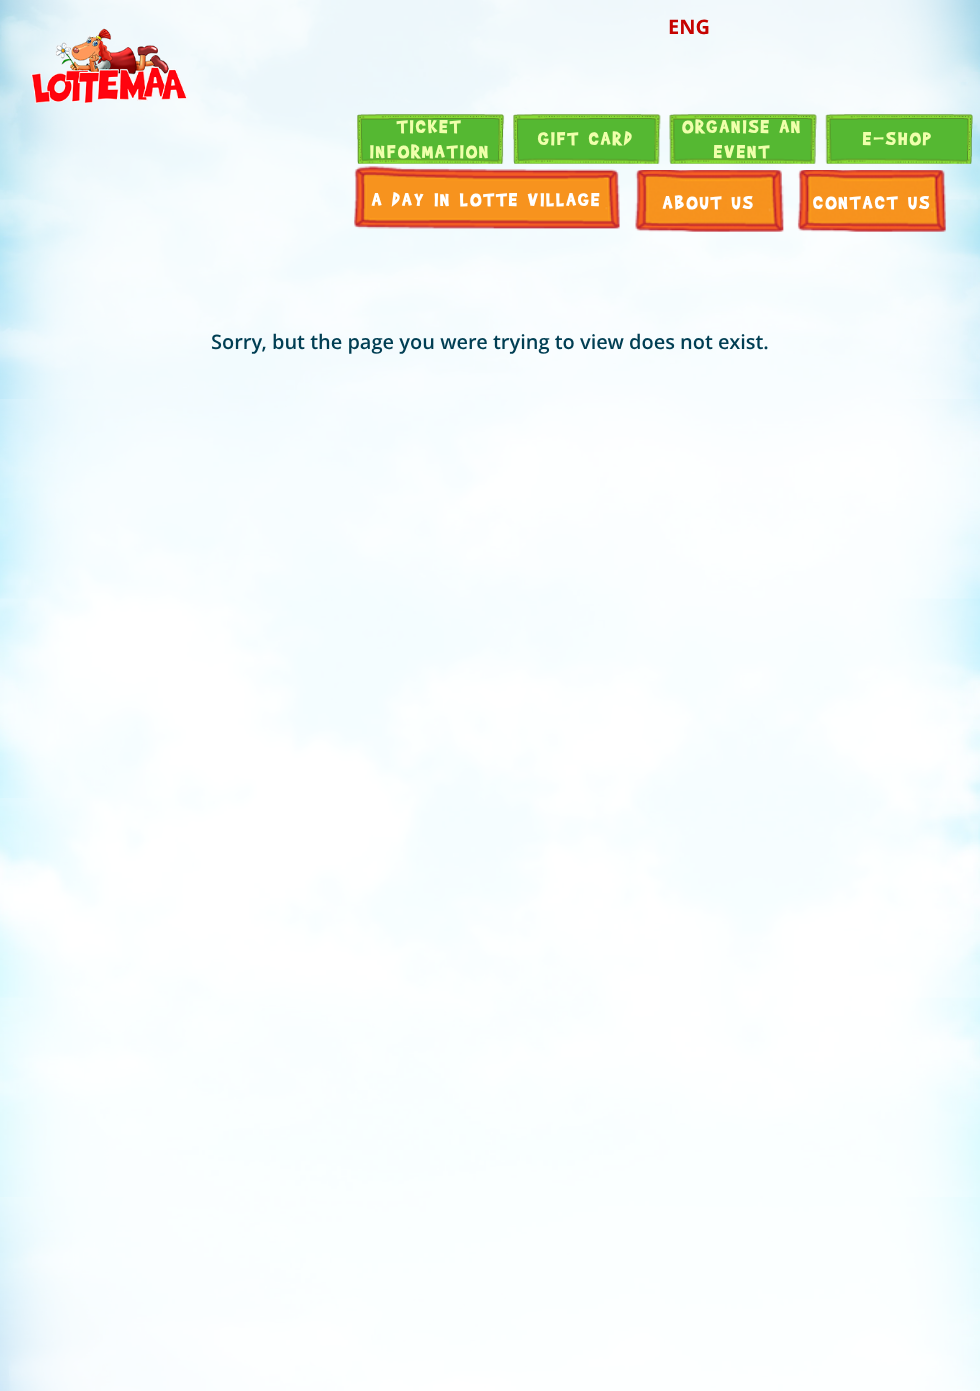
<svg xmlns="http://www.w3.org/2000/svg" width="980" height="1391">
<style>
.a{font:bold 20px Open Sans;fill:#c60300}
.b{font:22.5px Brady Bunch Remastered;letter-spacing:2.1px;fill:#efffab}
.c{font:22.5px Brady Bunch Remastered;letter-spacing:2.1px;fill:#fff}
.d{font:600 20px Open Sans;fill:#003e53}
</style>
<rect width="100%" height="100%" fill="#fff"/>
<image href="1.png" x="0" y="0" width="980" height="1391"/>
<image href="2.png" x="0" y="0" width="980" height="1391"/>
<image href="3.png" x="31" y="28" width="157" height="76"/>
<image href="4.png" x="357" y="114" width="148" height="50"/>
<image href="5.png" x="513" y="114" width="148" height="50"/>
<image href="6.png" x="669" y="114" width="148" height="50"/>
<image href="7.png" x="825" y="114" width="148" height="50"/>
<image href="8.png" x="354" y="166" width="266" height="63"/>
<image href="9.png" x="635" y="170" width="149" height="62"/>
<image href="10.png" x="797" y="170" width="149" height="62"/>
<text class="a" x="668" y="34">ENG</text>
<text class="b" x="397" y="133">TICKET</text>
<text class="b" x="370" y="158">INFORMATION</text>
<text class="b" x="538" y="145">GIFT CARD</text>
<text class="b" x="682" y="133">ORGANISE AN</text>
<text class="b" x="714" y="158">EVENT</text>
<text class="b" x="863" y="145">E-SHOP</text>
<text class="c" x="372" y="206">A DAY IN LOTTE VILLAGE</text>
<text class="c" x="663" y="209">ABOUT US</text>
<text class="c" x="813" y="209">CONTACT US</text>
<text class="d" x="211" y="349">Sorry, but the page you were trying to view does not exist.</text>
</svg>
